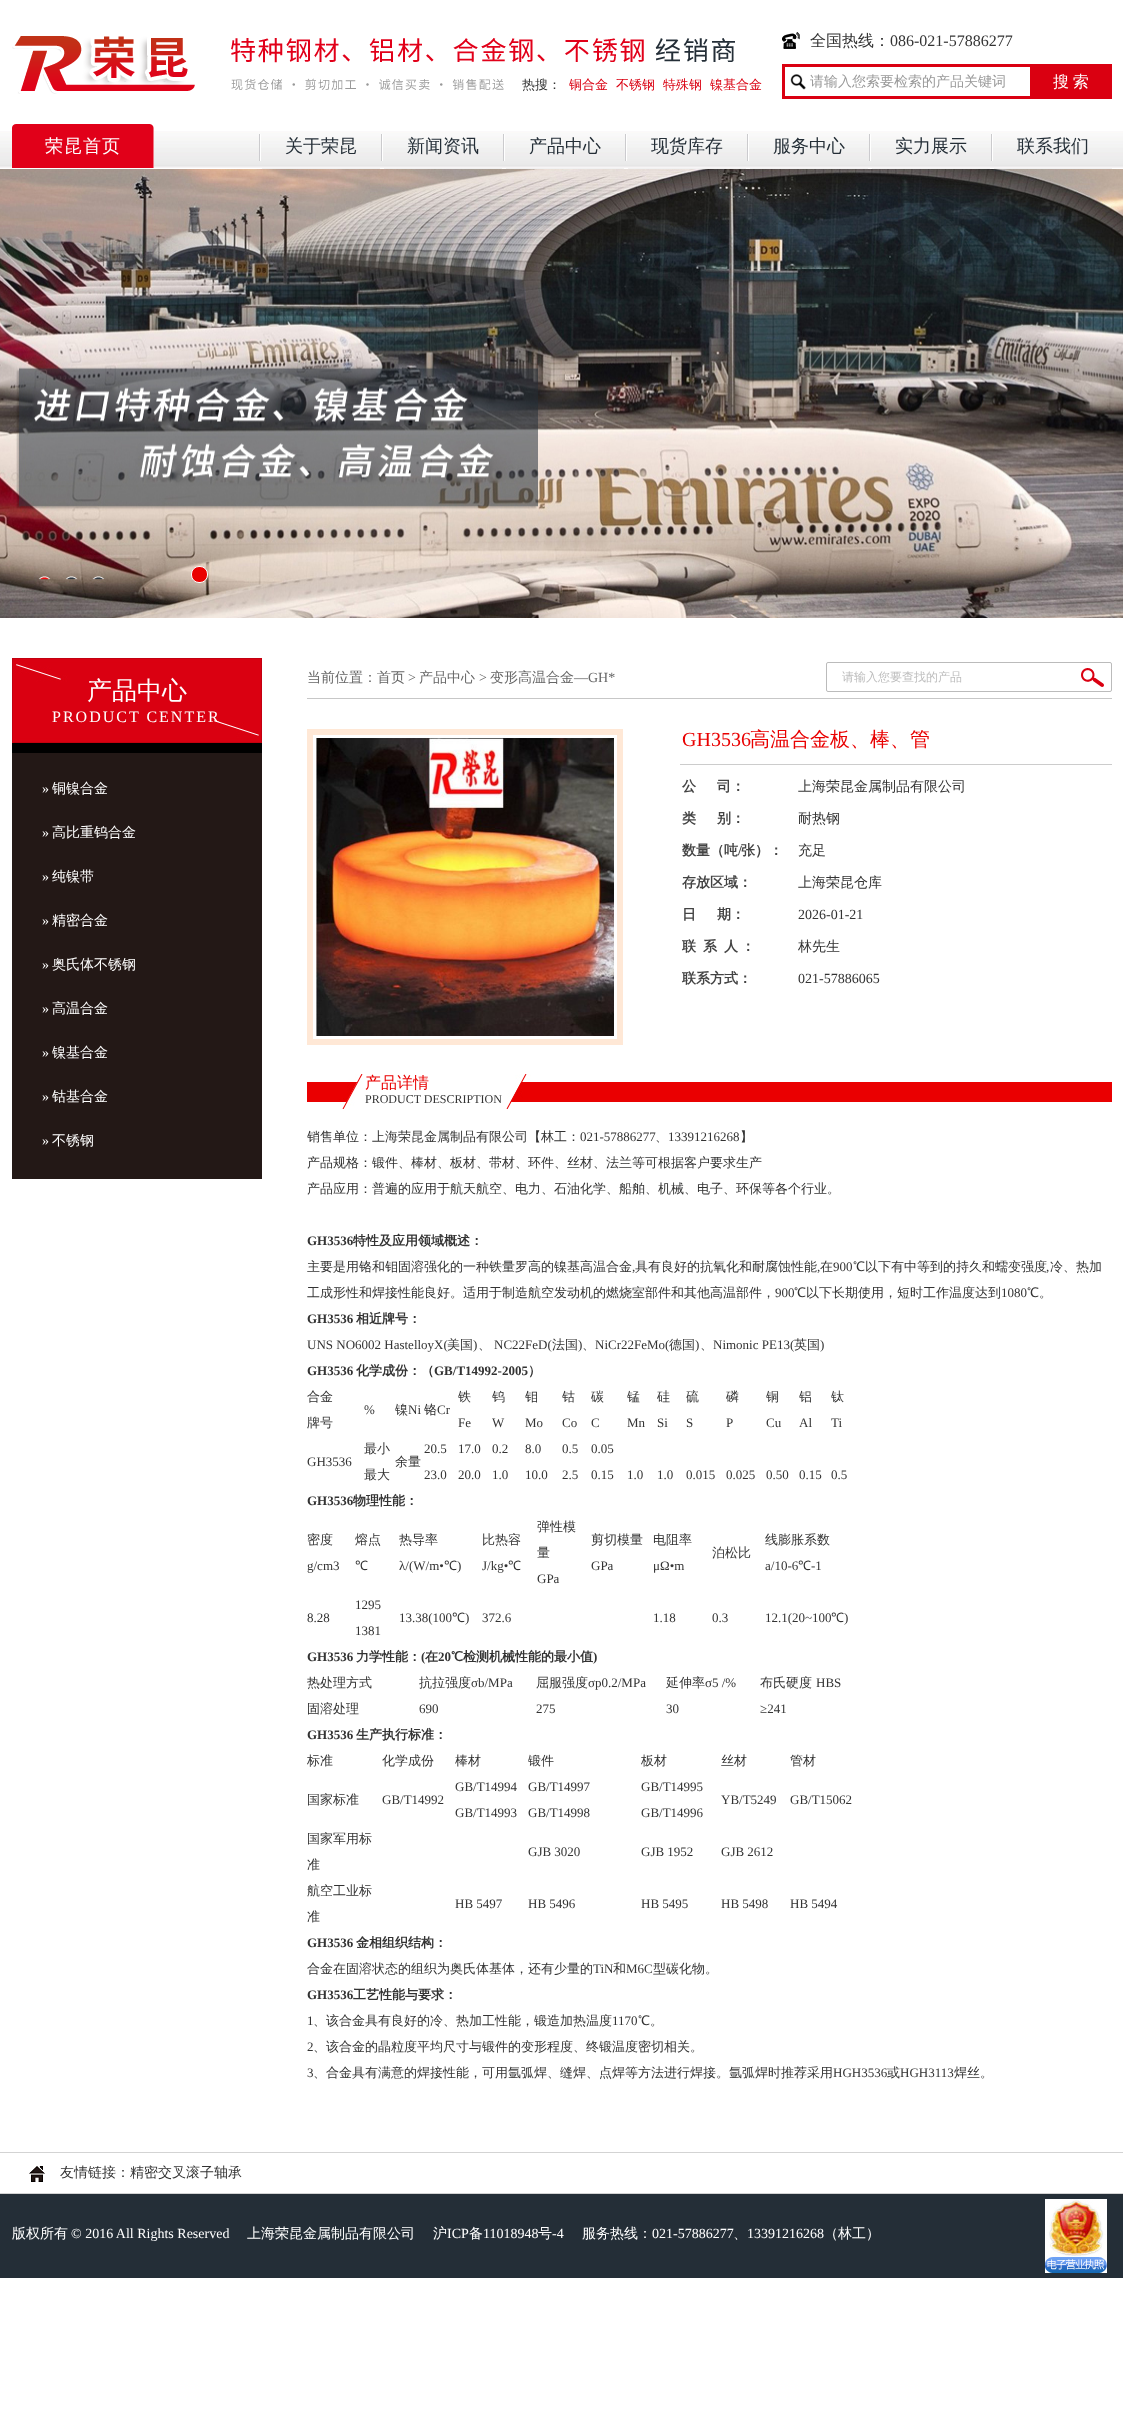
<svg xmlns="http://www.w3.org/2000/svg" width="1123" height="2417">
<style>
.a{font:500 16px WenQuanYi Zen Hei;fill:#333}
.b{font:16px Liberation Serif;fill:#333}
.c{font:500 13px WenQuanYi Zen Hei;fill:#333}
.d{font:500 13px WenQuanYi Zen Hei;fill:#da0011}
.e{font:500 14px WenQuanYi Zen Hei;fill:#999}
.f{font:500 16px WenQuanYi Zen Hei;fill:#fff}
.g{font:500 18px WenQuanYi Zen Hei;letter-spacing:1px;fill:#fff}
.h{font:500 18px WenQuanYi Zen Hei;fill:#242e37}
.i{font:500 25px WenQuanYi Zen Hei;fill:#fff}
.j{font:16px Liberation Serif;letter-spacing:2px;fill:#fff}
.k{font:14px Liberation Serif;fill:#fff}
.l{font:500 14px WenQuanYi Zen Hei;fill:#fff}
.m{font:500 14px WenQuanYi Zen Hei;fill:#666}
.n{font:14px Liberation Serif;fill:#666}
.o{font:500 12px WenQuanYi Zen Hei;fill:#bdbdbd}
.p{font:20px Liberation Serif;fill:#e90000}
.q{font:500 20px WenQuanYi Zen Hei;fill:#e90000}
.r{font:bold 14px WenQuanYi Zen Hei;fill:#444}
.s{font:500 14px WenQuanYi Zen Hei;fill:#333}
.t{font:bold 14px Liberation Serif;fill:#444}
.u{font:14px Liberation Serif;fill:#333}
.v{font:500 16px WenQuanYi Zen Hei;fill:#e90000}
.w{font:12px Liberation Serif;fill:#333}
.x{font:13px Liberation Serif;fill:#333}
.y{font:bold 13px Liberation Serif;fill:#333}
.z{font:bold 13px WenQuanYi Zen Hei;fill:#333}
.a1{font:13px Noto Sans;fill:#333}
</style>
<rect width="100%" height="100%" fill="#fff"/>
<image href="1.png" x="12" y="36" width="183" height="58"/>
<image href="2.png" x="231" y="38" width="504" height="52"/>
<image href="3.png" x="782" y="32" width="18" height="17"/>
<path fill="#da0011" d="M782 64h330v35H782z"/>
<path fill="#fff" d="M785 67h245v29H785z"/>
<image href="4.png" x="790" y="74" width="16" height="16"/>
<image href="5.png" x="0" y="131" width="1123" height="37"/>
<path fill="#fff" d="M12 131h142v37H12z"/>
<image href="6.png" x="12" y="124" width="142" height="44"/>
<image href="7.png" x="259" y="134" width="2" height="27"/>
<path fill="#f1f1f1" d="M262 168h118v1H262z"/>
<image href="7.png" x="381" y="134" width="2" height="27"/>
<path fill="#f1f1f1" d="M384 168h118v1H384z"/>
<image href="7.png" x="503" y="134" width="2" height="27"/>
<path fill="#f1f1f1" d="M506 168h118v1H506z"/>
<image href="7.png" x="625" y="134" width="2" height="27"/>
<path fill="#f1f1f1" d="M628 168h118v1H628z"/>
<image href="7.png" x="747" y="134" width="2" height="27"/>
<path fill="#f1f1f1" d="M750 168h118v1H750z"/>
<image href="7.png" x="869" y="134" width="2" height="27"/>
<path fill="#f1f1f1" d="M872 168h118v1H872z"/>
<image href="7.png" x="991" y="134" width="2" height="27"/>
<path fill="#f1f1f1" d="M994 168h118v1H994z"/>
<image href="8.png" x="0" y="169" width="1123" height="449"/>
<rect fill="#ea0000" stroke="#fff" x="191.5" y="566.5" width="16" height="16" rx="7.5"/>
<image href="9.png" x="12" y="658" width="250" height="85"/>
<path fill="#000" d="M12 743h250v10H12z"/>
<path fill="#231816" d="M12 753h250v426H12z"/>
<path fill="#c7c7c7" d="M307 698h805v1H307z"/>
<rect fill="none" stroke="#bbb" x="826.5" y="662.5" width="285" height="29" rx="1.5"/>
<image href="10.png" x="1081" y="668" width="23" height="19"/>
<path fill="none" stroke="#ffe8d6" stroke-width="6" d="M310 732h310v310H310z"/>
<image href="11.png" x="316" y="738" width="298" height="298"/>
<path fill="#ccc" d="M680 764h432v1H680z"/>
<image href="12.png" x="307" y="1074" width="805" height="35"/>
<path fill="#d3d3d3" d="M0 2152h1123v1H0z"/>
<path fill="#d3d3d3" d="M0 2193h1123v1H0z"/>
<image href="13.png" x="29" y="2166" width="16" height="16"/>
<path fill="#242e37" d="M0 2194h1123v84H0z"/>
<image href="14.png" x="1045" y="2199" width="62" height="74"/>
<text class="a" x="810" y="46">全国热线：</text>
<text class="b" x="890" y="46">086-021-57886277</text>
<text class="c" x="522" y="89">热搜：</text>
<text class="d" x="569" y="89">铜合金</text>
<text class="d" x="616" y="89">不锈钢</text>
<text class="d" x="663" y="89">特殊钢</text>
<text class="d" x="710" y="89">镍基合金</text>
<text class="e" x="810" y="86">请输入您索要检索的产品关键词</text>
<text class="f" x="1053" y="87" word-spacing="-1">搜 索</text>
<text class="g" x="45" y="152">荣昆首页</text>
<text class="h" x="285" y="152">关于荣昆</text>
<text class="h" x="407" y="152">新闻资讯</text>
<text class="h" x="529" y="152">产品中心</text>
<text class="h" x="651" y="152">现货库存</text>
<text class="h" x="773" y="152">服务中心</text>
<text class="h" x="895" y="152">实力展示</text>
<text class="h" x="1017" y="152">联系我们</text>
<text class="i" x="87" y="699">产品中心</text>
<text class="j" x="52" y="722">PRODUCT CENTER</text>
<text class="k" x="42" y="793">»</text>
<text class="l" x="52" y="793">铜镍合金</text>
<text class="k" x="42" y="837">»</text>
<text class="l" x="52" y="837">高比重钨合金</text>
<text class="k" x="42" y="881">»</text>
<text class="l" x="52" y="881">纯镍带</text>
<text class="k" x="42" y="925">»</text>
<text class="l" x="52" y="925">精密合金</text>
<text class="k" x="42" y="969">»</text>
<text class="l" x="52" y="969">奥氏体不锈钢</text>
<text class="k" x="42" y="1013">»</text>
<text class="l" x="52" y="1013">高温合金</text>
<text class="k" x="42" y="1057">»</text>
<text class="l" x="52" y="1057">镍基合金</text>
<text class="k" x="42" y="1101">»</text>
<text class="l" x="52" y="1101">钴基合金</text>
<text class="k" x="42" y="1145">»</text>
<text class="l" x="52" y="1145">不锈钢</text>
<text class="m" x="307" y="682">当前位置：首页</text>
<text class="n" x="408" y="682">&gt;</text>
<text class="m" x="419" y="682">产品中心</text>
<text class="n" x="479" y="682">&gt;</text>
<text class="m" x="490" y="682">变形高温合金</text>
<text class="n" x="574" y="682">—GH*</text>
<text class="o" x="842" y="681">请输入您要查找的产品</text>
<text class="p" x="682" y="746">GH3536</text>
<text class="q" x="750" y="746">高温合金板、棒、管</text>
<text class="r" x="682" y="791">公</text>
<text class="r" x="717" y="791">司：</text>
<text class="s" x="798" y="791">上海荣昆金属制品有限公司</text>
<text class="r" x="682" y="823">类</text>
<text class="r" x="717" y="823">别：</text>
<text class="s" x="798" y="823">耐热钢</text>
<text class="r" x="682" y="855">数量（吨</text>
<text class="t" x="738" y="855">/</text>
<text class="r" x="741" y="855">张）：</text>
<text class="s" x="798" y="855">充足</text>
<text class="r" x="682" y="887">存放区域：</text>
<text class="s" x="798" y="887">上海荣昆仓库</text>
<text class="r" x="682" y="919">日</text>
<text class="r" x="717" y="919">期：</text>
<text class="u" x="798" y="919">2026-01-21</text>
<text class="r" x="682" y="951">联</text>
<text class="r" x="703" y="951">系</text>
<text class="r" x="724" y="951">人</text>
<text class="r" x="741" y="951">：</text>
<text class="s" x="798" y="951">林先生</text>
<text class="r" x="682" y="983">联系方式：</text>
<text class="u" x="798" y="983">021-57886065</text>
<text class="v" x="365" y="1088">产品详情</text>
<text class="w" x="365" y="1103">PRODUCT DESCRIPTION</text>
<text class="c" x="307" y="1141">销售单位：上海荣昆金属制品有限公司【林工：</text>
<text class="x" x="580" y="1141">021-57886277</text>
<text class="c" x="655" y="1141">、</text>
<text class="x" x="668" y="1141">13391216268</text>
<text class="c" x="740" y="1141">】</text>
<text class="c" x="307" y="1167">产品规格：锻件、棒材、板材、带材、环件、丝材、法兰等可根据客户要求生产</text>
<text class="c" x="307" y="1193">产品应用：普遍的应用于航天航空、电力、石油化学、船舶、机械、电子、环保等各个行业。</text>
<text class="y" x="307" y="1245">GH3536</text>
<text class="z" x="353" y="1245">特性及应用领域概述：</text>
<text class="c" x="307" y="1271">主要是用铬和钼固溶强化的一种铁量罗高的镍基高温合金</text>
<text class="x" x="632" y="1271">,</text>
<text class="c" x="635" y="1271">具有良好的抗氧化和耐腐蚀性能</text>
<text class="x" x="817" y="1271">,</text>
<text class="c" x="820" y="1271">在</text>
<text class="x" x="833" y="1271">900</text>
<text class="c" x="853" y="1271">℃以下有中等到的持久和蠕变强度</text>
<text class="x" x="1046" y="1271">,</text>
<text class="c" x="1050" y="1271">冷、热加</text>
<text class="c" x="307" y="1297">工成形性和焊接性能良好。适用于制造航空发动机的燃烧室部件和其他高温部件，</text>
<text class="x" x="775" y="1297">900</text>
<text class="c" x="794" y="1297">℃以下长期使用，短时工作温度达到</text>
<text class="x" x="1001" y="1297">1080</text>
<text class="c" x="1027" y="1297">℃。</text>
<text class="y" x="307" y="1323">GH3536</text>
<text class="z" x="356" y="1323">相近牌号：</text>
<text class="x" x="307" y="1349">UNS NO6002 HastelloyX(</text>
<text class="c" x="447" y="1349">美国</text>
<text class="x" x="473" y="1349">)</text>
<text class="c" x="478" y="1349">、</text>
<text class="x" x="494" y="1349">NC22FeD(</text>
<text class="c" x="552" y="1349">法国</text>
<text class="x" x="578" y="1349">)</text>
<text class="c" x="582" y="1349">、</text>
<text class="x" x="595" y="1349">NiCr22FeMo(</text>
<text class="c" x="669" y="1349">德国</text>
<text class="x" x="695" y="1349">)</text>
<text class="c" x="700" y="1349">、</text>
<text class="x" x="713" y="1349">Nimonic PE13(</text>
<text class="c" x="794" y="1349">英国</text>
<text class="x" x="820" y="1349">)</text>
<text class="y" x="307" y="1375">GH3536</text>
<text class="z" x="356" y="1375">化学成份：（</text>
<text class="y" x="434" y="1375">GB/T14992-2005</text>
<text class="z" x="528" y="1375">）</text>
<text class="c" x="307" y="1401">合金</text>
<text class="c" x="307" y="1427">牌号</text>
<text class="x" x="364" y="1414">%</text>
<text class="c" x="395" y="1414">镍</text>
<text class="x" x="408" y="1414">Ni</text>
<text class="c" x="424" y="1414">铬</text>
<text class="x" x="437" y="1414">Cr</text>
<text class="c" x="458" y="1401">铁</text>
<text class="x" x="458" y="1427">Fe</text>
<text class="c" x="492" y="1401">钨</text>
<text class="x" x="492" y="1427">W</text>
<text class="c" x="525" y="1401">钼</text>
<text class="x" x="525" y="1427">Mo</text>
<text class="c" x="562" y="1401">钴</text>
<text class="x" x="562" y="1427">Co</text>
<text class="c" x="591" y="1401">碳</text>
<text class="x" x="591" y="1427">C</text>
<text class="c" x="627" y="1401">锰</text>
<text class="x" x="627" y="1427">Mn</text>
<text class="c" x="657" y="1401">硅</text>
<text class="x" x="657" y="1427">Si</text>
<text class="c" x="686" y="1401">硫</text>
<text class="x" x="686" y="1427">S</text>
<text class="c" x="726" y="1401">磷</text>
<text class="x" x="726" y="1427">P</text>
<text class="c" x="766" y="1401">铜</text>
<text class="x" x="766" y="1427">Cu</text>
<text class="c" x="799" y="1401">铝</text>
<text class="x" x="799" y="1427">Al</text>
<text class="c" x="831" y="1401">钛</text>
<text class="x" x="831" y="1427">Ti</text>
<text class="c" x="364" y="1453">最小</text>
<text class="x" x="424" y="1453">20.5</text>
<text class="x" x="458" y="1453">17.0</text>
<text class="x" x="492" y="1453">0.2</text>
<text class="x" x="525" y="1453">8.0</text>
<text class="x" x="562" y="1453">0.5</text>
<text class="x" x="591" y="1453">0.05</text>
<text class="x" x="307" y="1466">GH3536</text>
<text class="c" x="395" y="1466">余量</text>
<text class="c" x="364" y="1479">最大</text>
<text class="x" x="424" y="1479">23.0</text>
<text class="x" x="458" y="1479">20.0</text>
<text class="x" x="492" y="1479">1.0</text>
<text class="x" x="525" y="1479">10.0</text>
<text class="x" x="562" y="1479">2.5</text>
<text class="x" x="591" y="1479">0.15</text>
<text class="x" x="627" y="1479">1.0</text>
<text class="x" x="657" y="1479">1.0</text>
<text class="x" x="686" y="1479">0.015</text>
<text class="x" x="726" y="1479">0.025</text>
<text class="x" x="766" y="1479">0.50</text>
<text class="x" x="799" y="1479">0.15</text>
<text class="x" x="831" y="1479">0.5</text>
<text class="y" x="307" y="1505">GH3536</text>
<text class="z" x="353" y="1505">物理性能：</text>
<text class="c" x="307" y="1544">密度</text>
<text class="x" x="307" y="1570">g/cm3</text>
<text class="c" x="355" y="1544">熔点</text>
<text class="a1" x="355" y="1570">℃</text>
<text class="c" x="399" y="1544">热导率</text>
<text class="x" x="399" y="1570">λ/(W/m•</text>
<text class="a1" x="444" y="1570">℃</text>
<text class="x" x="457" y="1570">)</text>
<text class="c" x="482" y="1544">比热容</text>
<text class="x" x="482" y="1570">J/kg•</text>
<text class="a1" x="508" y="1570">℃</text>
<text class="c" x="537" y="1531">弹性模</text>
<text class="c" x="537" y="1557">量</text>
<text class="x" x="537" y="1583">GPa</text>
<text class="c" x="591" y="1544">剪切模量</text>
<text class="x" x="591" y="1570">GPa</text>
<text class="c" x="653" y="1544">电阻率</text>
<text class="x" x="653" y="1570">μΩ•m</text>
<text class="c" x="712" y="1557">泊松比</text>
<text class="c" x="765" y="1544">线膨胀系数</text>
<text class="x" x="765" y="1570">a/10-6</text>
<text class="a1" x="798" y="1570">℃</text>
<text class="x" x="811" y="1570">-1</text>
<text class="x" x="307" y="1622">8.28</text>
<text class="x" x="355" y="1609">1295</text>
<text class="x" x="355" y="1635">1381</text>
<text class="x" x="399" y="1622">13.38(100</text>
<text class="a1" x="452" y="1622">℃</text>
<text class="x" x="465" y="1622">)</text>
<text class="x" x="482" y="1622">372.6</text>
<text class="x" x="653" y="1622">1.18</text>
<text class="x" x="712" y="1622">0.3</text>
<text class="x" x="765" y="1622">12.1(20~100</text>
<text class="a1" x="831" y="1622">℃</text>
<text class="x" x="844" y="1622">)</text>
<text class="y" x="307" y="1661">GH3536</text>
<text class="z" x="356" y="1661">力学性能：</text>
<text class="y" x="421" y="1661">(</text>
<text class="z" x="425" y="1661">在</text>
<text class="y" x="438" y="1661">20</text>
<text class="z" x="451" y="1661">℃检测机械性能的最小值</text>
<text class="y" x="593" y="1661">)</text>
<text class="c" x="307" y="1687">热处理方式</text>
<text class="c" x="419" y="1687">抗拉强度</text>
<text class="x" x="471" y="1687">σb/MPa</text>
<text class="c" x="536" y="1687">屈服强度</text>
<text class="x" x="588" y="1687">σp0.2/MPa</text>
<text class="c" x="666" y="1687">延伸率</text>
<text class="x" x="705" y="1687">σ5 /%</text>
<text class="c" x="760" y="1687">布氏硬度</text>
<text class="x" x="816" y="1687">HBS</text>
<text class="c" x="307" y="1713">固溶处理</text>
<text class="x" x="419" y="1713">690</text>
<text class="x" x="536" y="1713">275</text>
<text class="x" x="666" y="1713">30</text>
<text class="x" x="760" y="1713">≥241</text>
<text class="y" x="307" y="1739">GH3536</text>
<text class="z" x="356" y="1739">生产执行标准：</text>
<text class="c" x="307" y="1765">标准</text>
<text class="c" x="382" y="1765">化学成份</text>
<text class="c" x="455" y="1765">棒材</text>
<text class="c" x="528" y="1765">锻件</text>
<text class="c" x="641" y="1765">板材</text>
<text class="c" x="721" y="1765">丝材</text>
<text class="c" x="790" y="1765">管材</text>
<text class="c" x="307" y="1804">国家标准</text>
<text class="x" x="382" y="1804">GB/T14992</text>
<text class="x" x="455" y="1791">GB/T14994</text>
<text class="x" x="455" y="1817">GB/T14993</text>
<text class="x" x="528" y="1791">GB/T14997</text>
<text class="x" x="528" y="1817">GB/T14998</text>
<text class="x" x="641" y="1791">GB/T14995</text>
<text class="x" x="641" y="1817">GB/T14996</text>
<text class="x" x="721" y="1804">YB/T5249</text>
<text class="x" x="790" y="1804">GB/T15062</text>
<text class="c" x="307" y="1843">国家军用标</text>
<text class="c" x="307" y="1869">准</text>
<text class="x" x="528" y="1856">GJB 3020</text>
<text class="x" x="641" y="1856">GJB 1952</text>
<text class="x" x="721" y="1856">GJB 2612</text>
<text class="c" x="307" y="1895">航空工业标</text>
<text class="c" x="307" y="1921">准</text>
<text class="x" x="455" y="1908">HB 5497</text>
<text class="x" x="528" y="1908">HB 5496</text>
<text class="x" x="641" y="1908">HB 5495</text>
<text class="x" x="721" y="1908">HB 5498</text>
<text class="x" x="790" y="1908">HB 5494</text>
<text class="y" x="307" y="1947">GH3536</text>
<text class="z" x="356" y="1947">金相组织结构：</text>
<text class="c" x="307" y="1973">合金在固溶状态的组织为奥氏体基体，还有少量的</text>
<text class="x" x="593" y="1973">TiN</text>
<text class="c" x="613" y="1973">和</text>
<text class="x" x="626" y="1973">M6C</text>
<text class="c" x="653" y="1973">型碳化物。</text>
<text class="y" x="307" y="1999">GH3536</text>
<text class="z" x="353" y="1999">工艺性能与要求：</text>
<text class="x" x="307" y="2025">1</text>
<text class="c" x="313" y="2025">、该合金具有良好的冷、热加工性能，锻造加热温度</text>
<text class="x" x="612" y="2025">1170</text>
<text class="c" x="638" y="2025">℃。</text>
<text class="x" x="307" y="2051">2</text>
<text class="c" x="313" y="2051">、该合金的晶粒度平均尺寸与锻件的变形程度、终锻温度密切相关。</text>
<text class="x" x="307" y="2077">3</text>
<text class="c" x="313" y="2077">、合金具有满意的焊接性能，可用氩弧焊、缝焊、点焊等方法进行焊接。氩弧焊时推荐采用</text>
<text class="x" x="833" y="2077">HGH3536</text>
<text class="c" x="887" y="2077">或</text>
<text class="x" x="900" y="2077">HGH3113</text>
<text class="c" x="954" y="2077">焊丝。</text>
<text class="s" x="60" y="2177">友情链接：精密交叉滚子轴承</text>
<text class="l" x="12" y="2238">版权所有</text>
<text class="k" x="71" y="2238">© 2016 All Rights Reserved</text>
<text class="l" x="247" y="2238">上海荣昆金属制品有限公司</text>
<text class="l" x="433" y="2238">沪</text>
<text class="k" x="447" y="2238">ICP</text>
<text class="l" x="469" y="2238">备</text>
<text class="k" x="483" y="2238">11018948</text>
<text class="l" x="538" y="2238">号</text>
<text class="k" x="552" y="2238">-4</text>
<text class="l" x="582" y="2238">服务热线：</text>
<text class="k" x="652" y="2238">021-57886277</text>
<text class="l" x="733" y="2238">、</text>
<text class="k" x="747" y="2238">13391216268</text>
<text class="l" x="824" y="2238">（林工）</text>
</svg>
